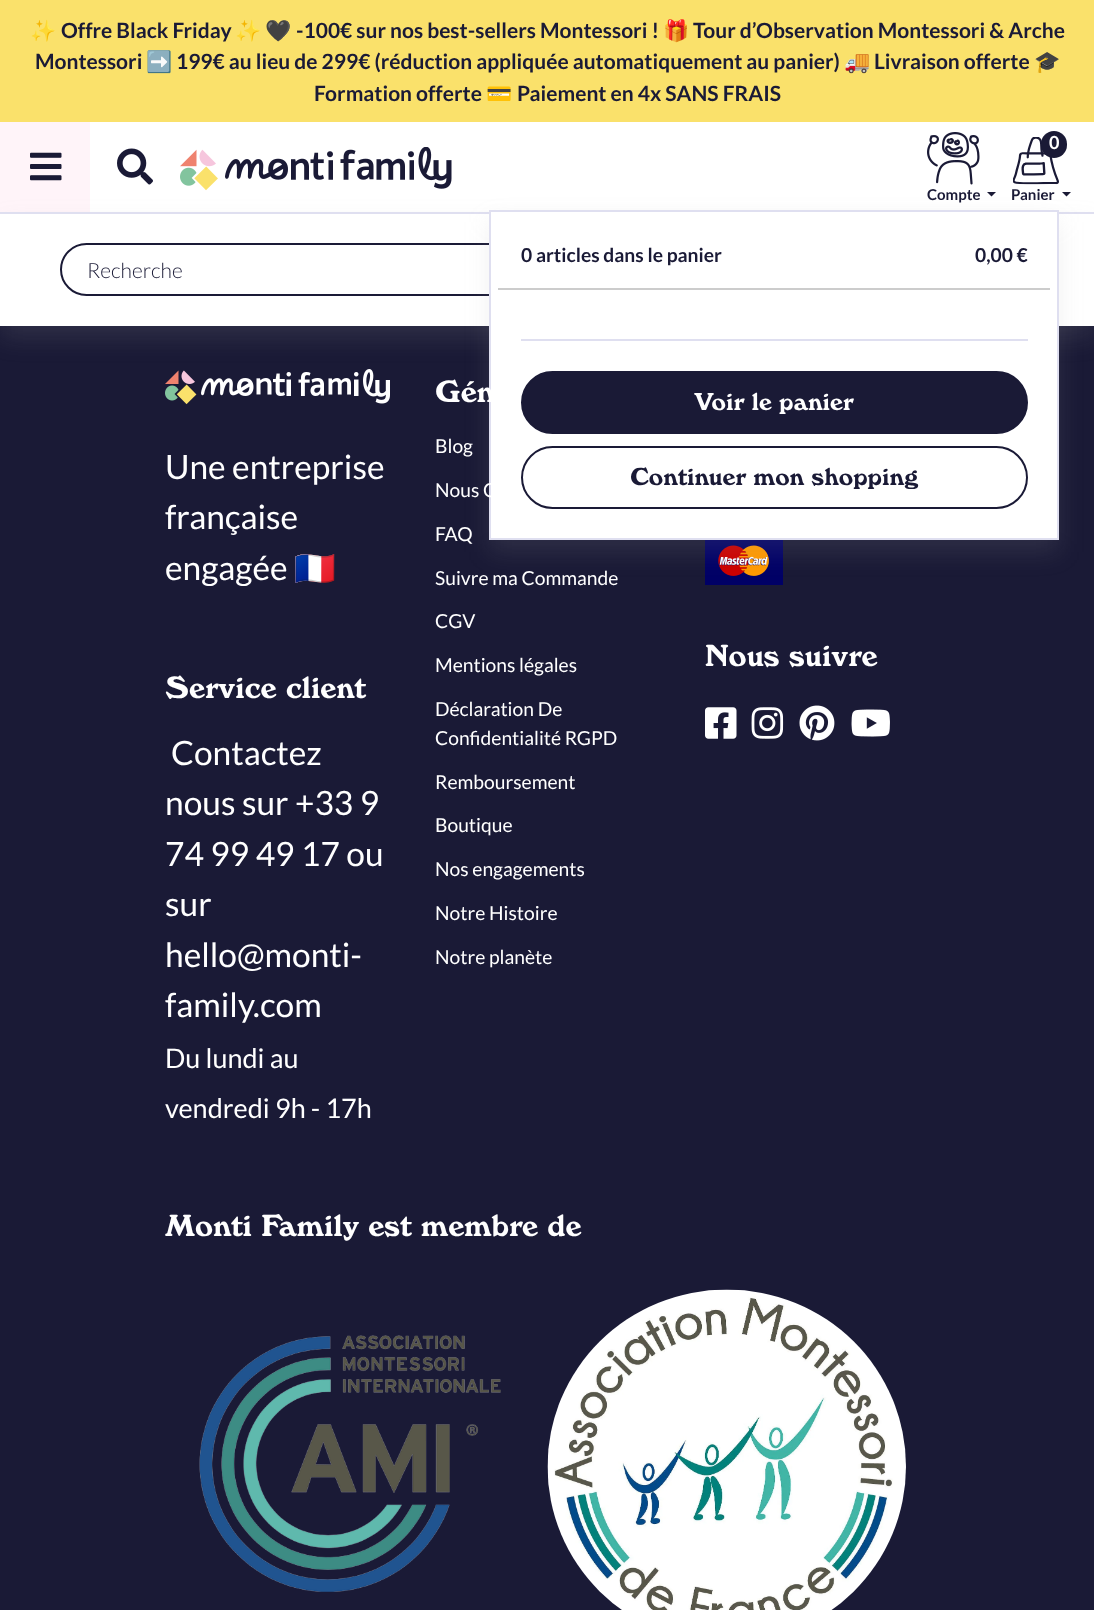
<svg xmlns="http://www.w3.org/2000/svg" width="1094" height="1610">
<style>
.a{font:bold 21px Noto Color Emoji;fill:#1a1a36}
.b{font:bold 21px Lato;fill:#1a1a36}
.c{font:bold 18px Lato;fill:#fff}
.d{font:bold 15px Lato;fill:#1a1a36}
.e{font:bold 19.25px Lato;fill:#1a1a36}
.f{font:24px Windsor;fill:#fff}
.g{font:24px Windsor;fill:#1a1a36}
.h{font:300 21px Lato;fill:#1a1a36}
.i{font:33.5px Lato;fill:#fff}
.j{font:33.5px Noto Color Emoji;fill:#fff}
.k{font:30px Windsor;fill:#fff}
.l{font:27px Lato;fill:#fff}
.m{font:19.25px Lato;fill:#fff}
</style>
<rect width="100%" height="100%" fill="#1a1a36"/>
<path fill="#fae16b" d="M0 0h1094v122H0z"/>
<path fill="#fff" d="M90 122h1004v90H90z"/>
<path fill="#fff4f9" d="M0 122h90v90H0z"/>
<image href="1.png" x="30" y="152" width="32" height="29"/>
<image href="2.png" x="180" y="147" width="272" height="44"/>
<image href="3.png" x="1013" y="137" width="46" height="48"/>
<rect fill="#1a1a36" x="1041" y="131" width="26" height="27" rx="13"/>
<path fill="#1a1a36" d="M1062 192h9l-4.5 4.5z"/>
<path fill="#1a1a36" d="M987 192h9l-4.5 4.5z"/>
<image href="6.png" x="165" y="369" width="225" height="36"/>
<path fill="#9e9e9e26" filter="blur(12px)" d="M0 224h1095v114H0z"/>
<path fill="#fff" d="M0 214h1094v112H0z"/>
<path fill="#dfdff0" d="M0 212h1094v2H0z"/>
<rect fill="none" stroke="#1a1a36" stroke-width="2" x="61" y="244" width="973" height="51" rx="25.5"/>
<image href="7.png" x="705" y="540" width="78" height="45"/>
<path fill="#9e9e9e26" filter="blur(12px)" d="M489 222h570v330H489z"/>
<path fill="#fff" stroke="#dfdff0" stroke-width="2" d="M490 211h568v328H490z"/>
<path fill="#dfdff0" d="M521 339h507v2H521z"/>
<path fill="#ccc" d="M498 288h552v2H498z"/>
<rect fill="#1a1a36" stroke="#1a1a36" stroke-width="2" x="522" y="372" width="505" height="61" rx="30.5"/>
<rect fill="none" stroke="#1a1a36" stroke-width="2" x="522" y="447" width="505" height="61" rx="30.5"/>
<image href="4.png" x="927" y="132" width="53" height="53"/>
<image href="5.png" x="117" y="148" width="36" height="37"/>
<image href="8.png" x="705" y="707" width="32" height="32"/>
<image href="9.png" x="751" y="707" width="33" height="32"/>
<image href="10.png" x="799" y="705" width="36" height="36"/>
<image href="11.png" x="851" y="709" width="39" height="28"/>
<image href="12.png" x="199" y="1335" width="302" height="257"/>
<image href="13.png" x="547" y="1289" width="359" height="321"/>
<text class="a" x="30" y="38">✨</text>
<text class="b" x="61" y="38">Offre Black Friday</text>
<text class="a" x="235" y="38">✨</text>
<text class="a" x="265" y="38">🖤</text>
<text class="b" x="296" y="38">-100€ sur nos best-sellers Montessori !</text>
<text class="a" x="663" y="38">🎁</text>
<text class="b" x="693" y="38">Tour d’Observation Montessori &amp; Arche</text>
<text class="b" x="35" y="69">Montessori</text>
<text class="a" x="146" y="69">➡️</text>
<text class="b" x="176" y="69">199€ au lieu de 299€ (réduction appliquée automatiquement au panier)</text>
<text class="a" x="844" y="69">🚚</text>
<text class="b" x="874" y="69">Livraison offerte</text>
<text class="a" x="1034" y="69">🎓</text>
<text class="b" x="314" y="101">Formation offerte</text>
<text class="a" x="486" y="101">💳</text>
<text class="b" x="517" y="101">Paiement en 4x SANS FRAIS</text>
<text class="c" x="1049" y="149">0</text>
<text class="d" x="1011" y="200">Panier</text>
<text class="e" x="521" y="262">0 articles dans le panier</text>
<text class="e" x="975" y="262">0,00 €</text>
<text class="f" x="694" y="410">Voir le panier</text>
<text class="g" x="630" y="485">Continuer mon shopping</text>
<text class="d" x="927" y="200">Compte</text>
<text class="h" x="87" y="278">Recherche</text>
<text class="i" x="165" y="479">Une entreprise</text>
<text class="i" x="165" y="529">française</text>
<text class="i" x="165" y="580">engagée</text>
<text class="j" x="294" y="580">🇫🇷</text>
<text class="k" x="165" y="698">Service client</text>
<text class="i" x="171" y="765">Contactez</text>
<text class="i" x="165" y="815">nous sur +33 9</text>
<text class="i" x="165" y="866">74 99 49 17 ou</text>
<text class="i" x="165" y="916">sur</text>
<text class="i" x="165" y="967">hello@monti-</text>
<text class="i" x="165" y="1017">family.com</text>
<text class="l" x="165" y="1068">Du lundi au</text>
<text class="l" x="165" y="1118">vendredi 9h - 17h</text>
<text class="k" x="435" y="402">Gén</text>
<text class="m" x="435" y="453">Blog</text>
<text class="m" x="435" y="497">Nous C</text>
<text class="m" x="435" y="541">FAQ</text>
<text class="m" x="435" y="585">Suivre ma Commande</text>
<text class="m" x="435" y="628">CGV</text>
<text class="m" x="435" y="672">Mentions légales</text>
<text class="m" x="435" y="716">Déclaration De</text>
<text class="m" x="435" y="745">Confidentialité RGPD</text>
<text class="m" x="435" y="789">Remboursement</text>
<text class="m" x="435" y="832">Boutique</text>
<text class="m" x="435" y="876">Nos engagements</text>
<text class="m" x="435" y="920">Notre Histoire</text>
<text class="m" x="435" y="964">Notre planète</text>
<text class="k" x="705" y="666">Nous suivre</text>
<text class="k" x="165" y="1236">Monti Family est membre de</text>
</svg>
